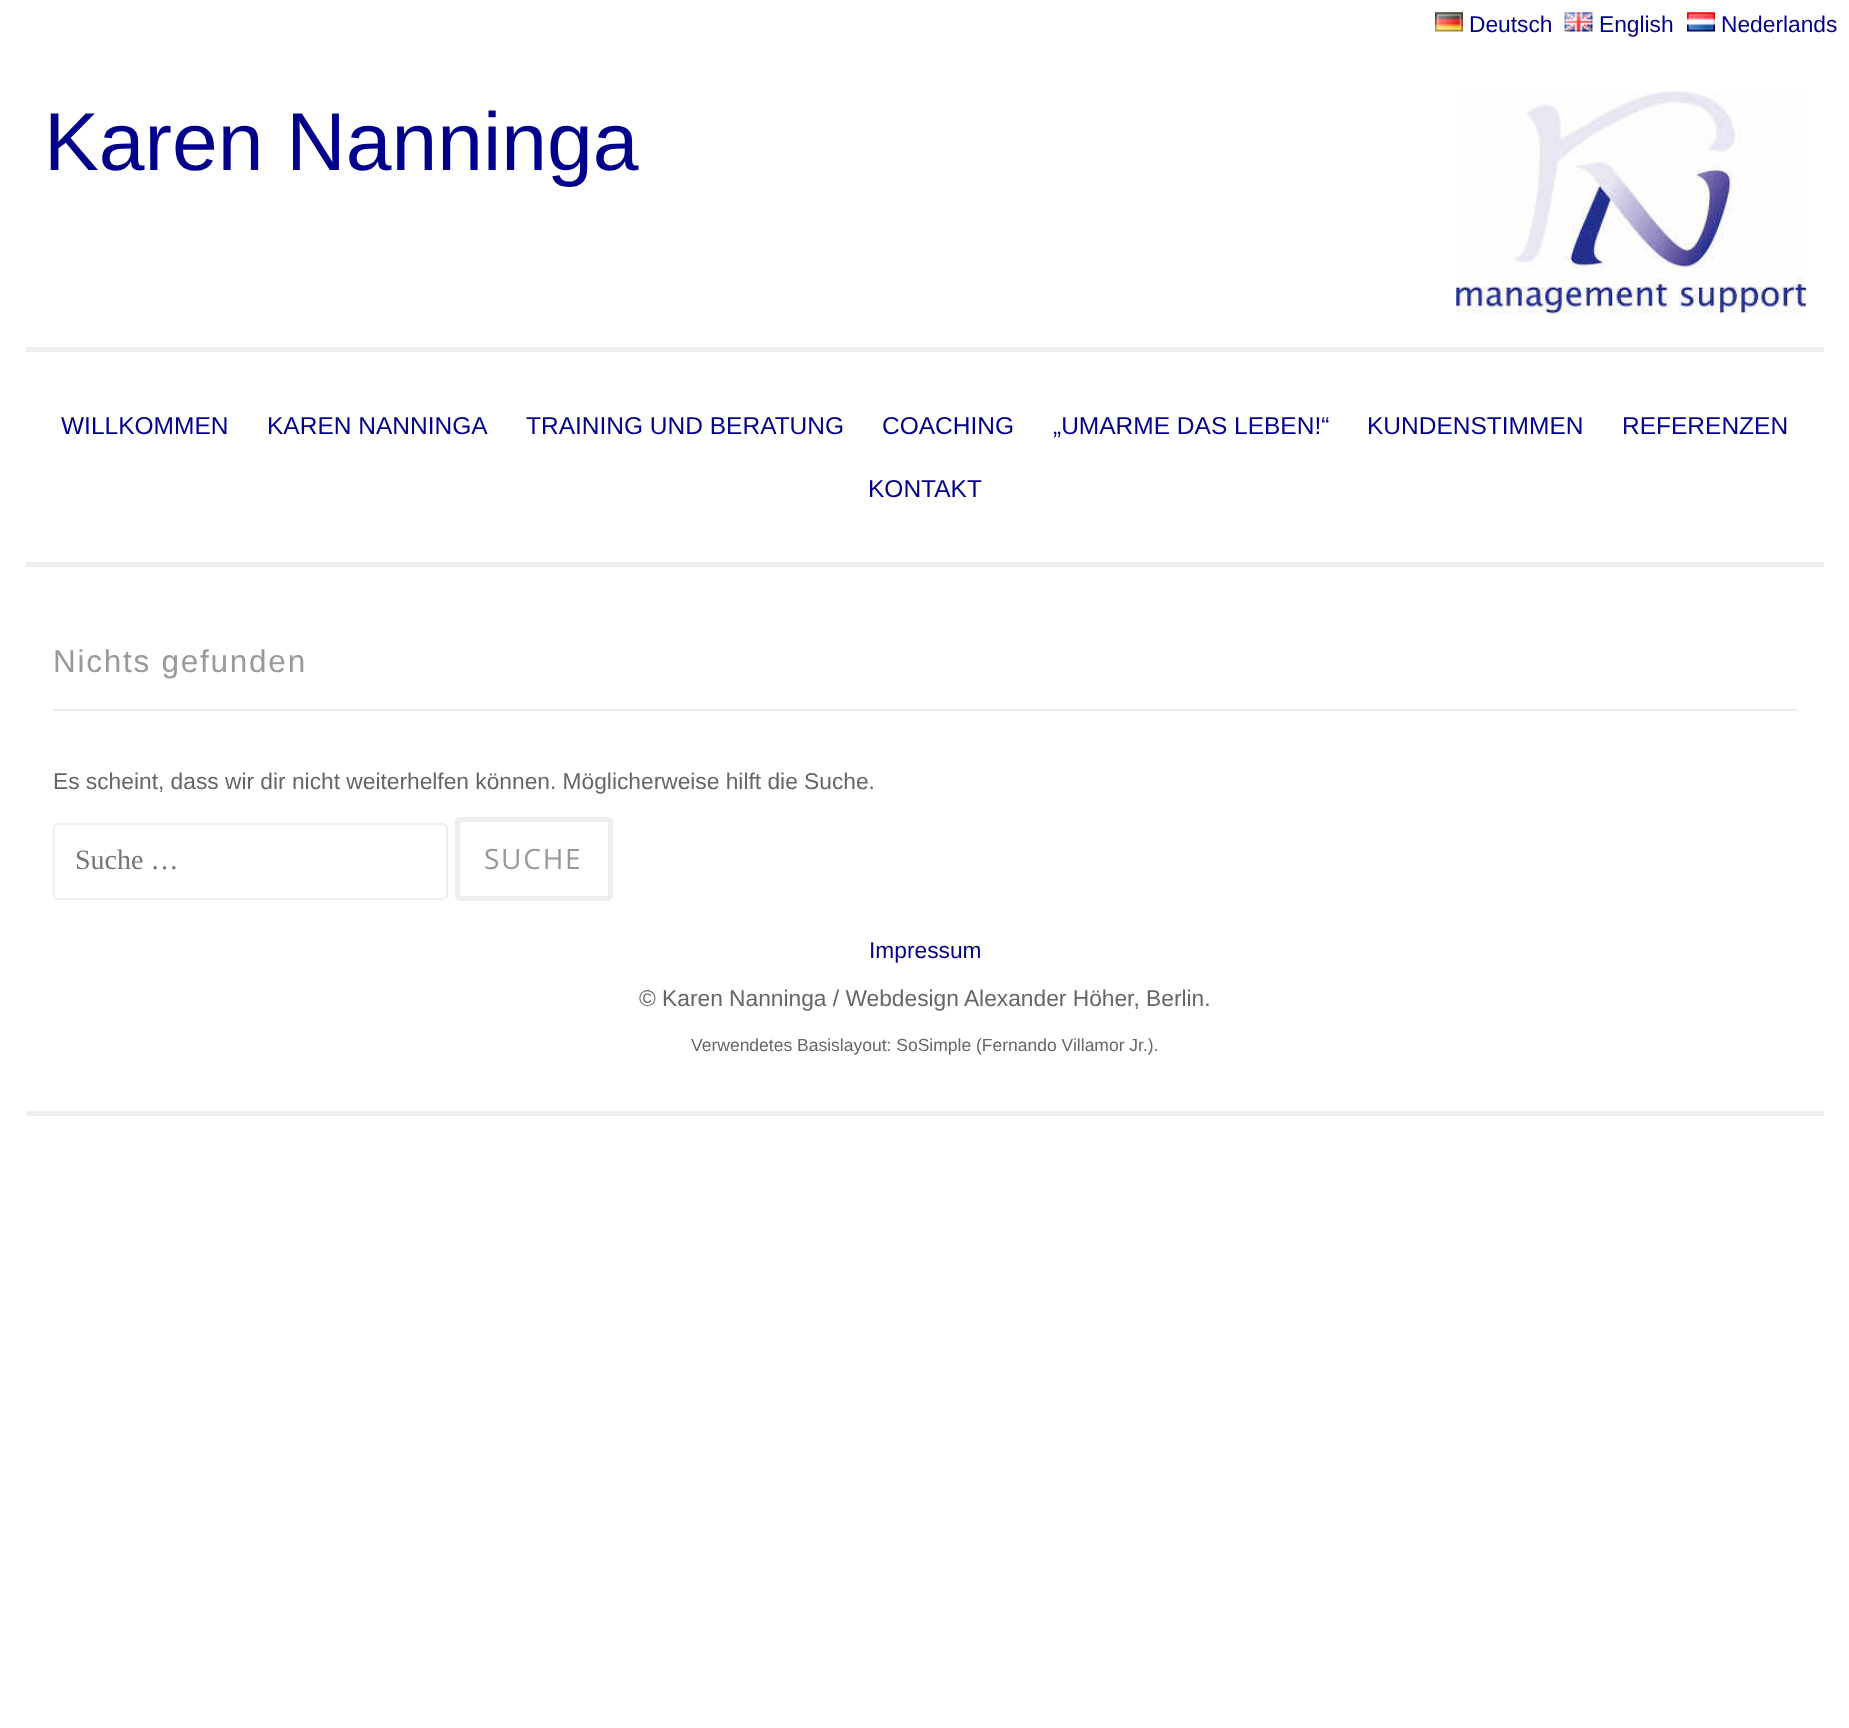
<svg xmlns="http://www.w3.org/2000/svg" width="1849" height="1728">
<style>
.a{font:22.75px Liberation Sans;fill:#00008b}
.b{font:82.25px Liberation Sans;fill:#00008b}
.c{font:24.5px Liberation Sans;fill:#00008b}
.d{font:31.5px Liberation Sans;letter-spacing:1.75px;fill:#999}
.e{font:22.75px Liberation Sans;fill:#666}
.f{font:28px Liberation Serif;fill:#757575}
.g{font:28px Open Sans;letter-spacing:1.75px;fill:#999}
.h{font:17.5px Liberation Sans;fill:#666}
</style>
<rect width="100%" height="100%" fill="#fff"/>
<image href="1.png" x="1435" y="12" width="28" height="20"/>
<image href="2.png" x="1564" y="12" width="29" height="20"/>
<image href="3.png" x="1687" y="12" width="28" height="20"/>
<path fill="#eee" d="M26 562h1798v5H26z"/>
<image href="4.png" x="1456" y="91" width="350" height="223"/>
<path fill="#eee" d="M26 347h1798v5H26z"/>
<path fill="#eee" d="M53 709h1744v2H53z"/>
<rect fill="none" stroke="#eee" stroke-width="2" x="54" y="824" width="393" height="75" rx="4"/>
<rect fill="none" stroke="#eee" stroke-width="5" x="457.5" y="819.5" width="153" height="79" rx="2.5"/>
<path fill="#eee" d="M26 1111h1798v5H26z"/>
<text class="a" x="1469" y="32">Deutsch</text>
<text class="a" x="1599" y="32">English</text>
<text class="a" x="1721" y="32">Nederlands</text>
<text class="b" x="44" y="170">Karen Nanninga</text>
<text class="c" x="61" y="434">WILLKOMMEN</text>
<text class="c" x="267" y="434">KAREN NANNINGA</text>
<text class="c" x="526" y="434">TRAINING UND BERATUNG</text>
<text class="c" x="882" y="434">COACHING</text>
<text class="c" x="1053" y="434">„UMARME DAS LEBEN!“</text>
<text class="c" x="1367" y="434">KUNDENSTIMMEN</text>
<text class="c" x="1622" y="434">REFERENZEN</text>
<text class="c" x="868" y="497">KONTAKT</text>
<text class="d" x="53" y="672">Nichts gefunden</text>
<text class="e" x="53" y="789">Es scheint, dass wir dir nicht weiterhelfen können. Möglicherweise hilft die Suche.</text>
<text class="f" x="75" y="869">Suche …</text>
<text class="g" x="484" y="869">SUCHE</text>
<text class="a" x="869" y="958">Impressum</text>
<text class="e" x="639" y="1006">© Karen Nanninga / Webdesign Alexander Höher, Berlin.</text>
<text class="h" x="691" y="1051">Verwendetes Basislayout: SoSimple (Fernando Villamor Jr.).</text>
</svg>
